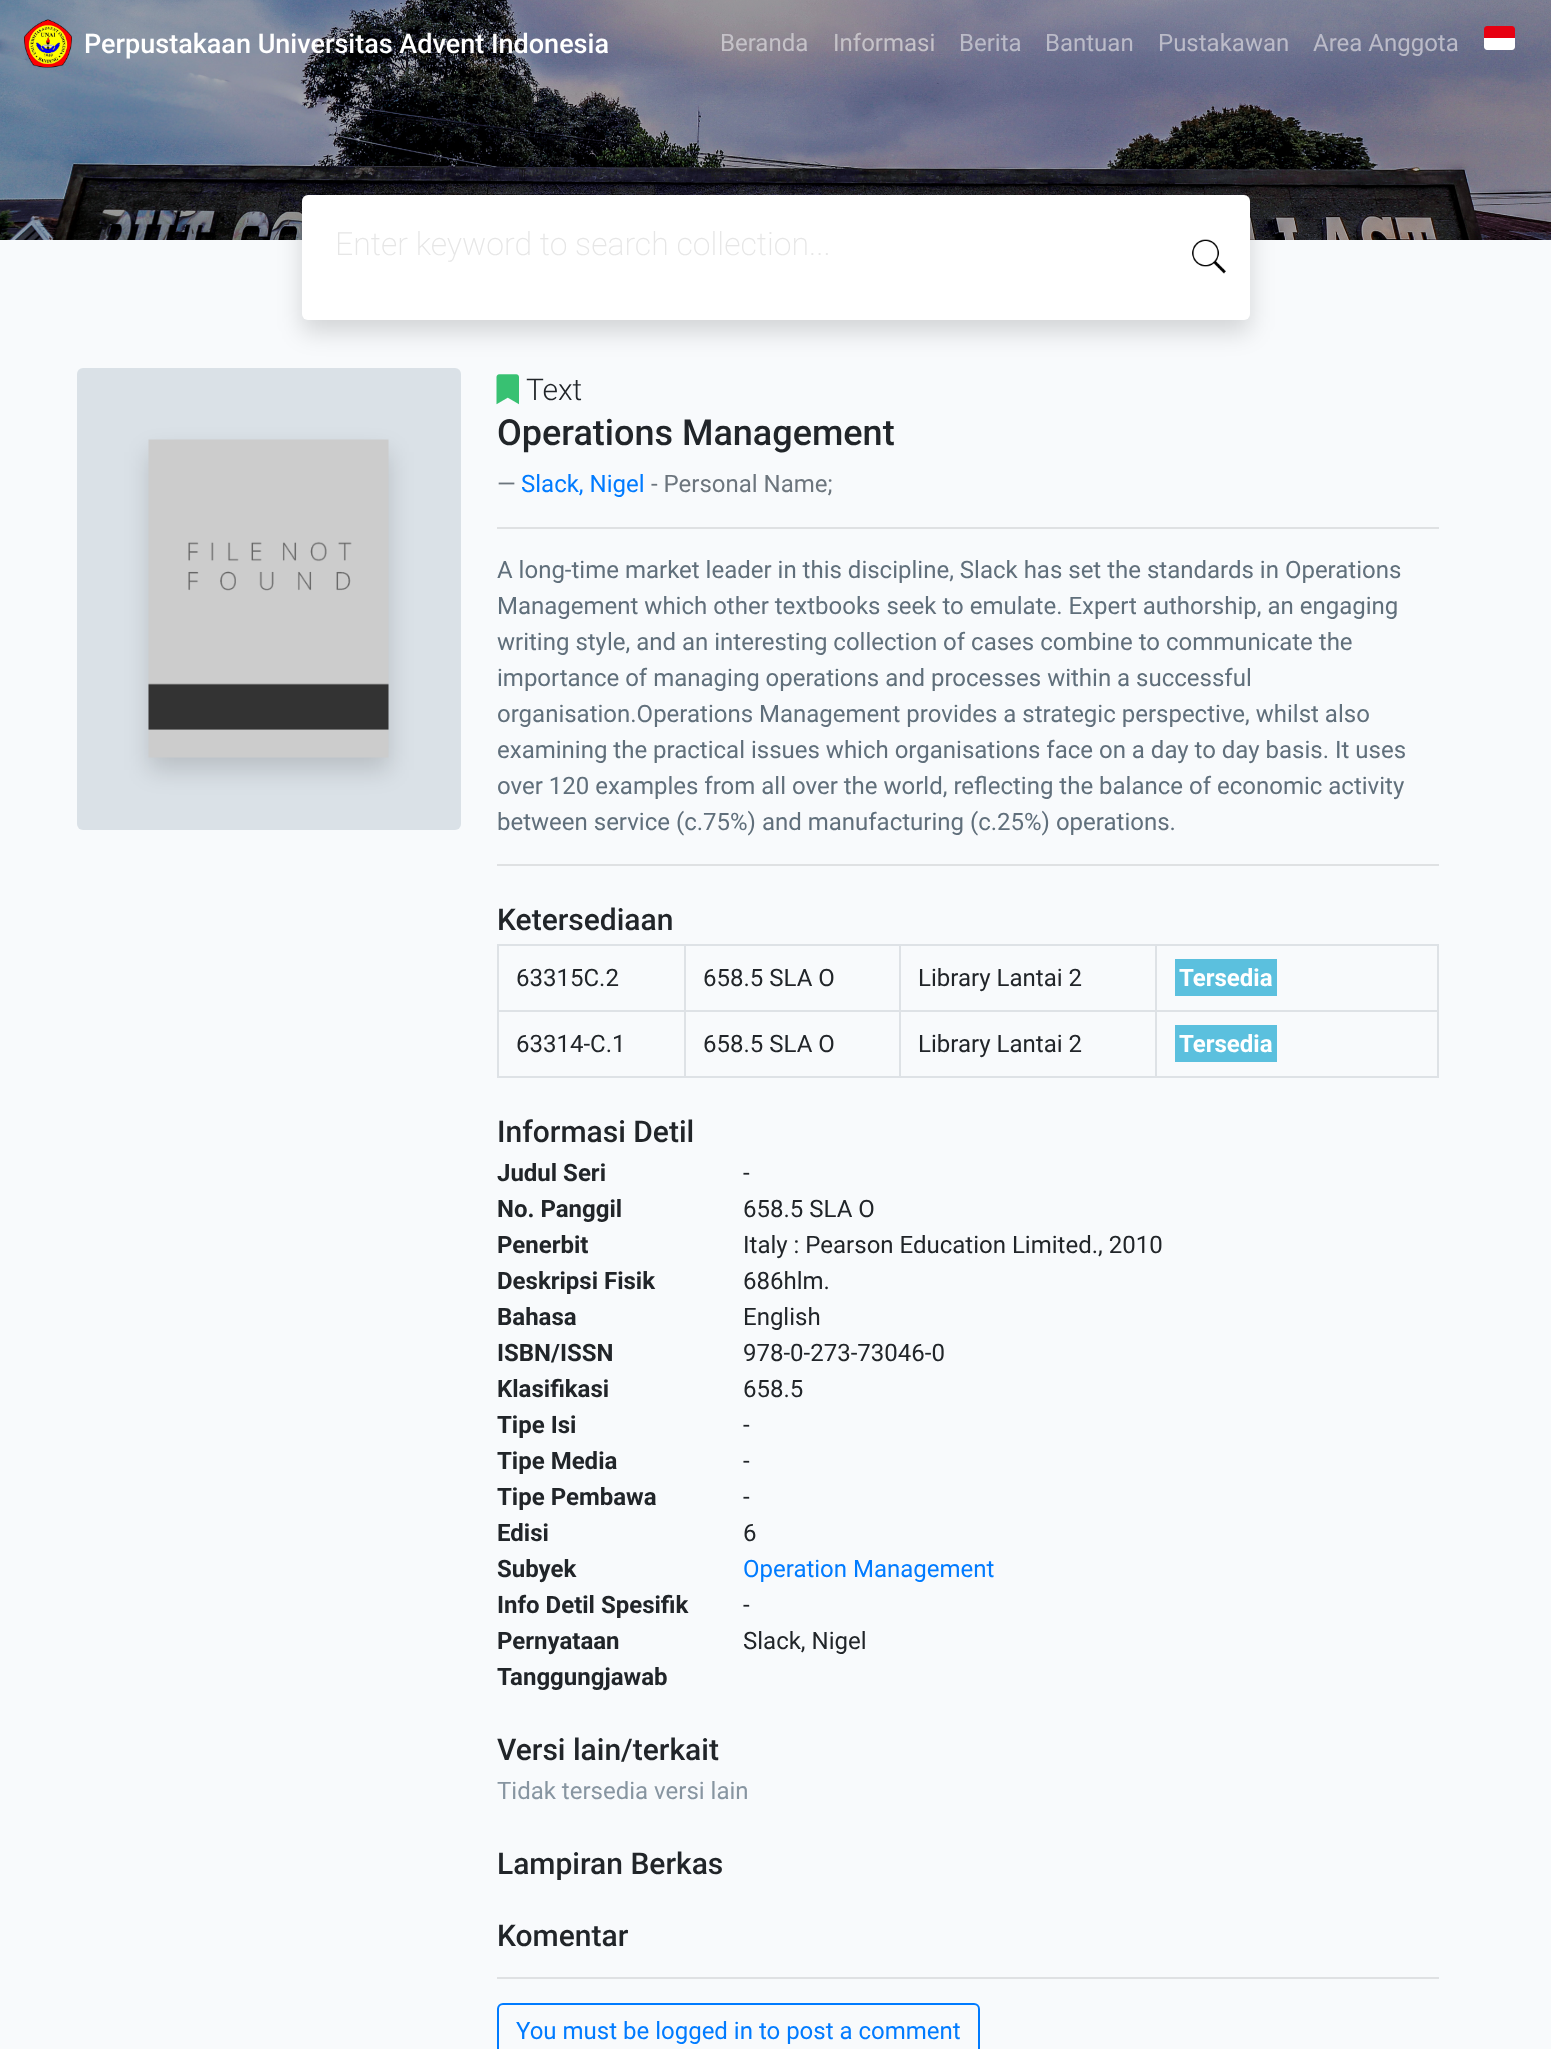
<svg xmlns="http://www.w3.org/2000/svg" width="1551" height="2049">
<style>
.a{font:500 27px Roboto;fill:#fff}
.b{font:24px Roboto;fill:#c5c2c8}
.c{font:24px Roboto;fill:#bbbbc8}
.d{font:200 32px Roboto;fill:#e6e6e6}
.e{font:300 30px Roboto;fill:#212529}
.f{font:500 36px Roboto;fill:#212529}
.g{font:24px Roboto;fill:#6c757d}
.h{font:24px Roboto;fill:#007bff}
.i{font:24px Roboto;fill:#606f7b}
.j{font:500 30px Roboto;fill:#212529}
.k{font:24px Roboto;fill:#212529}
.l{font:bold 24px Roboto;fill:#fff}
.m{font:bold 24px Roboto;fill:#212529}
.n{font:24px Roboto;fill:#8795a1}
</style>
<rect width="100%" height="100%" fill="#f8fafc"/>
<image href="1.png" x="0" y="0" width="1551" height="240"/>
<image href="2.png" x="24" y="19" width="48" height="49"/>
<path fill="#e70011" d="M1487 26h25c1.5 0 3 1.5 3 3v9h-31v-9c0-1.5 1.5-3 3-3z"/>
<path fill="#fff" d="M1484 38h31v9c0 1.5-1.5 3-3 3h-25c-1.5 0-3-1.5-3-3z"/>
<rect fill="#dae1e7" x="77" y="368" width="384" height="462" rx="6"/>
<rect fill="#00000026" filter="blur(12px)" x="302" y="207" width="948" height="125" rx="6"/>
<rect fill="#fff" x="302" y="195" width="948" height="125" rx="6"/>
<image href="3.png" x="1192" y="239" width="34" height="35"/>
<path fill="#00000026" filter="blur(12px)" d="M149 452h240v318H149z"/>
<image href="4.png" x="148" y="439" width="241" height="319"/>
<image href="5.png" x="496" y="374" width="23" height="31"/>
<path fill="#dfe1e3" d="M497 527h942v2H497z"/>
<path fill="#dfe1e3" d="M497 864h942v2H497z"/>
<path fill="#dee2e6" d="M497 944h942v2H497z"/>
<path fill="#dee2e6" d="M1437 944h2v133H1437z"/>
<path fill="#dee2e6" d="M497 1076h942v2H497z"/>
<path fill="#dee2e6" d="M497 944h2v133H497z"/>
<path fill="#dee2e6" d="M1155 1010h284v2H1155z"/>
<path fill="#dee2e6" d="M1155 1010h2v67H1155z"/>
<path fill="#dee2e6" d="M899 1010h258v2H899z"/>
<path fill="#dee2e6" d="M899 1010h2v67H899z"/>
<path fill="#dee2e6" d="M684 1010h216v2H684z"/>
<path fill="#dee2e6" d="M684 1010h2v67H684z"/>
<path fill="#dee2e6" d="M497 1010h189v2H497z"/>
<path fill="#dee2e6" d="M684 944h2v67H684z"/>
<path fill="#dee2e6" d="M899 944h2v67H899z"/>
<path fill="#dee2e6" d="M1155 944h2v67H1155z"/>
<path fill="#5bc0de" d="M1175 959h102v37H1175z"/>
<path fill="#5bc0de" d="M1175 1025h102v37H1175z"/>
<path fill="#dfe1e3" d="M497 1977h942v2H497z"/>
<rect fill="none" stroke="#007bff" stroke-width="2" x="498" y="2004" width="481" height="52" rx="5"/>
<text class="a" x="84" y="53">Perpustakaan Universitas Advent Indonesia</text>
<text class="b" x="720" y="51">Beranda</text>
<text class="b" x="833" y="51">Informasi</text>
<text class="c" x="959" y="51">Berita</text>
<text class="c" x="1045" y="51">Bantuan</text>
<text class="c" x="1158" y="51">Pustakawan</text>
<text class="c" x="1313" y="51">Area Anggota</text>
<text class="d" x="335" y="255">Enter keyword to search collection...</text>
<text class="e" x="526" y="400">Text</text>
<text class="f" x="497" y="445">Operations Management</text>
<text class="g" x="497" y="492">—</text>
<text class="h" x="521" y="492">Slack, Nigel</text>
<text class="g" x="651" y="492">- Personal Name;</text>
<text class="i" x="497" y="578">A long-time market leader in this discipline, Slack has set the standards in Operations</text>
<text class="i" x="497" y="614">Management which other textbooks seek to emulate. Expert authorship, an engaging</text>
<text class="i" x="497" y="650">writing style, and an interesting collection of cases combine to communicate the</text>
<text class="i" x="497" y="686">importance of managing operations and processes within a successful</text>
<text class="i" x="497" y="722">organisation.Operations Management provides a strategic perspective, whilst also</text>
<text class="i" x="497" y="758">examining the practical issues which organisations face on a day to day basis. It uses</text>
<text class="i" x="497" y="794">over 120 examples from all over the world, reflecting the balance of economic activity</text>
<text class="i" x="497" y="830">between service (c.75%) and manufacturing (c.25%) operations.</text>
<text class="j" x="497" y="930">Ketersediaan</text>
<text class="k" x="516" y="986">63315C.2</text>
<text class="k" x="703" y="986">658.5 SLA O</text>
<text class="k" x="918" y="986">Library Lantai 2</text>
<text class="l" x="1179" y="986">Tersedia</text>
<text class="k" x="516" y="1052">63314-C.1</text>
<text class="k" x="703" y="1052">658.5 SLA O</text>
<text class="k" x="918" y="1052">Library Lantai 2</text>
<text class="l" x="1179" y="1052">Tersedia</text>
<text class="j" x="497" y="1142">Informasi Detil</text>
<text class="m" x="497" y="1181">Judul Seri</text>
<text class="k" x="743" y="1181">-</text>
<text class="m" x="497" y="1217">No. Panggil</text>
<text class="k" x="743" y="1217">658.5 SLA O</text>
<text class="m" x="497" y="1253">Penerbit</text>
<text class="k" x="743" y="1253">Italy : Pearson Education Limited., 2010</text>
<text class="m" x="497" y="1289">Deskripsi Fisik</text>
<text class="k" x="743" y="1289">686hlm.</text>
<text class="m" x="497" y="1325">Bahasa</text>
<text class="k" x="743" y="1325">English</text>
<text class="m" x="497" y="1361">ISBN/ISSN</text>
<text class="k" x="743" y="1361">978-0-273-73046-0</text>
<text class="m" x="497" y="1397">Klasifikasi</text>
<text class="k" x="743" y="1397">658.5</text>
<text class="m" x="497" y="1433">Tipe Isi</text>
<text class="k" x="743" y="1433">-</text>
<text class="m" x="497" y="1469">Tipe Media</text>
<text class="k" x="743" y="1469">-</text>
<text class="m" x="497" y="1505">Tipe Pembawa</text>
<text class="k" x="743" y="1505">-</text>
<text class="m" x="497" y="1541">Edisi</text>
<text class="k" x="743" y="1541">6</text>
<text class="m" x="497" y="1577">Subyek</text>
<text class="h" x="743" y="1577">Operation Management</text>
<text class="m" x="497" y="1613">Info Detil Spesifik</text>
<text class="k" x="743" y="1613">-</text>
<text class="m" x="497" y="1649">Pernyataan</text>
<text class="m" x="497" y="1685">Tanggungjawab</text>
<text class="k" x="743" y="1649">Slack, Nigel</text>
<text class="j" x="497" y="1760">Versi lain/terkait</text>
<text class="n" x="497" y="1799">Tidak tersedia versi lain</text>
<text class="j" x="497" y="1874">Lampiran Berkas</text>
<text class="j" x="497" y="1946">Komentar</text>
<text class="h" x="516" y="2039">You must be logged in to post a comment</text>
</svg>
